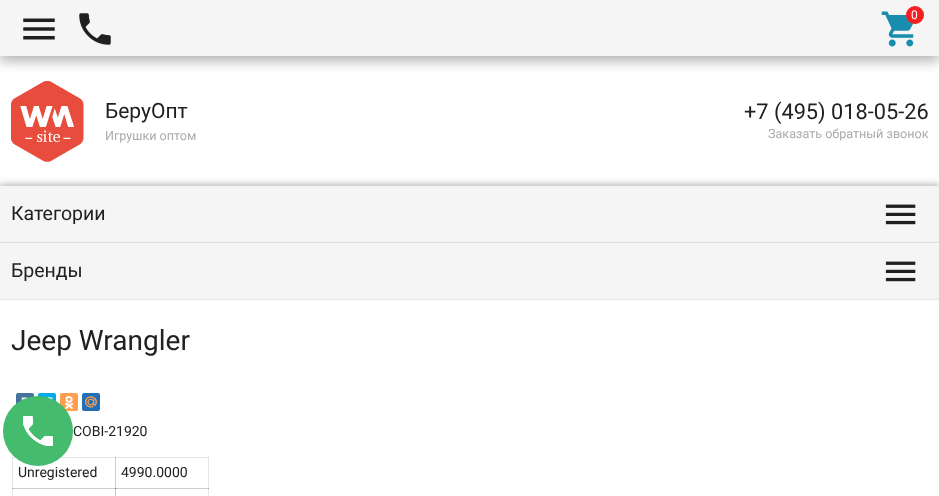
<svg xmlns="http://www.w3.org/2000/svg" width="939" height="496">
<style>
.a{font:12px Roboto;fill:#fff}
.b{font:21px Roboto;fill:#212121}
.c{font:12.6px Roboto;fill:#aaa}
.d{font:21.75px Roboto;fill:#212121}
.e{font:19.5px Roboto;fill:#212121}
.f{font:28px Roboto;fill:#212121}
.g{font:14px Roboto;fill:#212121}
</style>
<rect width="100%" height="100%" fill="#fff"/>
<path fill="#e6e6e6" d="M12 457h1v39H12z"/>
<path fill="#e6e6e6" d="M12 457h104v1H12z"/>
<path fill="#cfcfcf" d="M12 457h1v1H12z"/>
<path fill="#cfcfcf" d="M115 457h1v32H115z"/>
<path fill="#e6e6e6" d="M208 457h1v39H208z"/>
<path fill="#cfcfcf" d="M12 488h104v1H12z"/>
<path fill="#a7a7a7" d="M12 488h1v1H12z"/>
<path fill="#cfcfcf" d="M115 488h1v8H115z"/>
<image href="4.png" x="11" y="81" width="73" height="81"/>
<path fill="#00000026" filter="blur(7.5px)" d="M0 4h939v56H0z"/>
<path fill="#0000002e" filter="blur(5.5px)" d="M0 5h939v56H0z"/>
<path fill="#f5f5f5" d="M0 0h939v56H0z"/>
<image href="1.png" x="23" y="18" width="32" height="22"/>
<image href="2.png" x="79" y="13" width="32" height="32"/>
<image href="3.png" x="881" y="11" width="33" height="36"/>
<circle fill="#f61e20" cx="915" cy="15" r="9"/>
<path fill="#0000001f" filter="blur(5px)" d="M0 184h939v57H0z"/>
<path fill="#00000029" filter="blur(2.5px)" d="M0 184h939v57H0z"/>
<path fill="#f5f5f5" d="M0 186h939v56H0z"/>
<path fill="#dedede" d="M0 242h939v1H0z"/>
<image href="5.png" x="885" y="204" width="31" height="21"/>
<path fill="#e7e7e7" d="M0 299h939v1H0z"/>
<path fill="#f5f5f5" d="M0 243h939v56H0z"/>
<image href="5.png" x="885" y="261" width="31" height="21"/>
<rect fill="#48729e" x="16" y="393" width="18" height="18" rx="2"/>
<image href="6.png" x="21" y="397" width="7" height="4"/>
<rect fill="#00aced" x="38" y="393" width="18" height="18" rx="2"/>
<image href="7.png" x="47" y="397" width="6" height="3"/>
<rect fill="#ff9f4d" x="60" y="393" width="18" height="18" rx="2"/>
<image href="8.png" x="65" y="396" width="8" height="13"/>
<rect fill="#226eb7" x="82" y="393" width="18" height="18" rx="2"/>
<image href="9.png" x="85" y="396" width="12" height="12"/>
<path fill="#e6e6e6" d="M115 457h94v1H115z"/>
<path fill="#a7a7a7" d="M115 457h1v1H115z"/>
<path fill="#cfcfcf" d="M208 457h1v1H208z"/>
<path fill="#cfcfcf" d="M115 488h94v1H115z"/>
<path fill="#6e6e6e" d="M115 488h1v1H115z"/>
<path fill="#a7a7a7" d="M208 488h1v1H208z"/>
<circle fill="#44bb6e" cx="38" cy="431" r="35"/>
<circle fill="#44bb6e1a" cx="38" cy="431" r="35"/>
<image href="10.png" x="23" y="416" width="30" height="30"/>
<image href="11.png" x="23" y="416" width="30" height="30"/>
<text class="a" x="911" y="19">0</text>
<text class="b" x="105" y="118">БеруОпт</text>
<text class="c" x="105" y="140">Игрушки оптом</text>
<text class="d" x="744" y="119">+7 (495) 018-05-26</text>
<text class="c" x="768" y="138">Заказать обратный звонок</text>
<text class="e" x="11" y="220">Категории</text>
<text class="e" x="11" y="277">Бренды</text>
<text class="f" x="11" y="350">Jeep Wrangler</text>
<text class="g" x="73" y="436">COBI-21920</text>
<text class="g" x="18" y="477">Unregistered</text>
<text class="g" x="121" y="477">4990.0000</text>
</svg>
